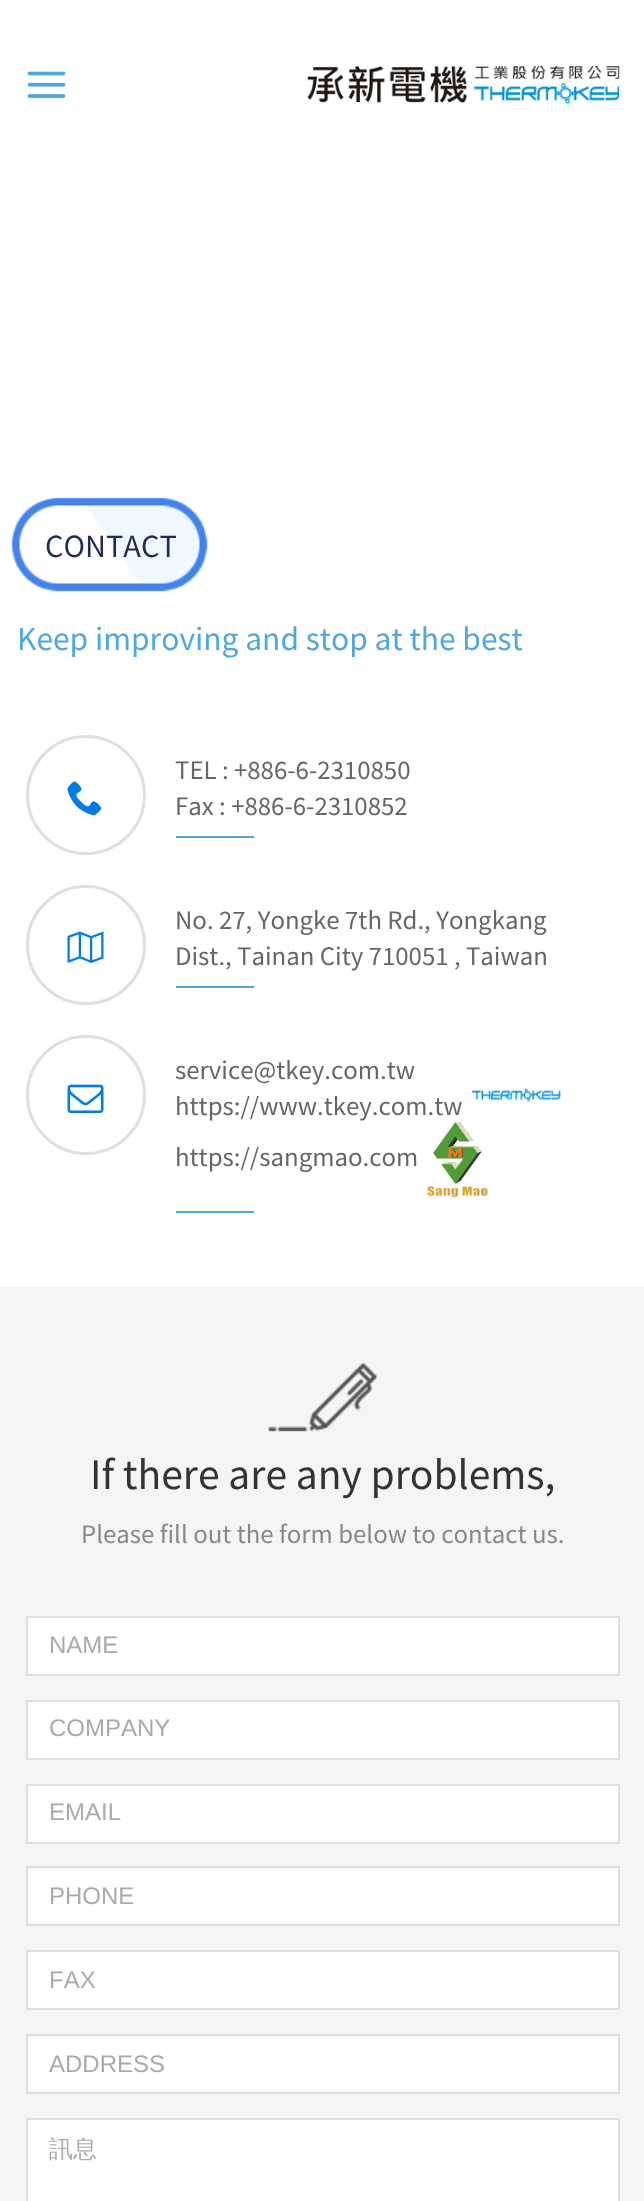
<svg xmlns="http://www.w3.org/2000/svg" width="644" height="2201">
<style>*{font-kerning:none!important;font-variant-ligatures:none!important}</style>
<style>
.a{font:100 29px Noto Sans TC;fill:#1b2c59}
.b{font:100 30px Noto Sans TC;fill:#50a7dd}
.c{font:100 24px Noto Sans TC;fill:#666}
.d{font:100 39px Noto Sans TC;fill:#333}
.e{font:100 24px Noto Sans TC;fill:#888}
.f{font:24px Liberation Sans;fill:#aaa}
.g{font:500 24px WenQuanYi Zen Hei;fill:#aaa}
</style>
<rect width="100%" height="100%" fill="#fff"/>
<image href="1.png" x="27" y="71" width="39" height="27"/>
<image href="2.png" x="307" y="66" width="313" height="38"/>
<image href="3.png" x="11" y="497" width="197" height="95"/>
<circle fill="none" stroke="#dfdfdf" stroke-width="3" cx="86" cy="795" r="58.5"/>
<image href="4.png" x="67" y="781" width="35" height="35"/>
<path fill="#50a7dd" d="M176 836h78v2H176z"/>
<circle fill="none" stroke="#dfdfdf" stroke-width="3" cx="86" cy="945" r="58.5"/>
<image href="5.png" x="67" y="931" width="37" height="32"/>
<path fill="#50a7dd" d="M176 986h78v2H176z"/>
<circle fill="none" stroke="#dfdfdf" stroke-width="3" cx="86" cy="1095" r="58.5"/>
<image href="6.png" x="67" y="1084" width="37" height="29"/>
<image href="7.png" x="472" y="1087" width="89" height="16"/>
<image href="8.png" x="427" y="1122" width="61" height="75"/>
<path fill="#50a7dd" d="M176 1211h78v2H176z"/>
<path fill="#f5f5f5" d="M0 1287h644v914H0z"/>
<image href="9.png" x="268" y="1363" width="109" height="69"/>
<path fill="#fff" stroke="#dfdfdf" stroke-width="2" d="M27 1617h592v58H27z"/>
<path fill="#fff" stroke="#dfdfdf" stroke-width="2" d="M27 1701h592v58H27z"/>
<path fill="#fff" stroke="#dfdfdf" stroke-width="2" d="M27 1785h592v58H27z"/>
<path fill="#fff" stroke="#dfdfdf" stroke-width="2" d="M27 1867h592v58H27z"/>
<path fill="#fff" stroke="#dfdfdf" stroke-width="2" d="M27 1951h592v58H27z"/>
<path fill="#fff" stroke="#dfdfdf" stroke-width="2" d="M27 2035h592v58H27z"/>
<path fill="#fff" stroke="#dfdfdf" stroke-width="2" d="M27 2119h592v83H27z"/>
<text class="a" x="45" y="557">CONTACT</text>
<text class="b" x="17" y="650">Keep improving and stop at the best</text>
<text class="c" x="175" y="779">TEL : +886-6-2310850</text>
<text class="c" x="175" y="815">Fax : +886-6-2310852</text>
<text class="c" x="175" y="929">No. 27, Yongke 7th Rd., Yongkang</text>
<text class="c" x="175" y="965">Dist., Tainan City 710051 , Taiwan</text>
<text class="c" x="175" y="1079">service@tkey.com.tw</text>
<text class="c" x="175" y="1115">https://www.tkey.com.tw</text>
<text class="c" x="175" y="1166">https://sangmao.com</text>
<text class="d" x="90" y="1489">If there are any problems,</text>
<text class="e" x="81" y="1543">Please fill out the form below to contact us.</text>
<text class="f" x="49" y="1653">NAME</text>
<text class="f" x="49" y="1736">COMPANY</text>
<text class="f" x="49" y="1820">EMAIL</text>
<text class="f" x="49" y="1904">PHONE</text>
<text class="f" x="49" y="1988">FAX</text>
<text class="f" x="49" y="2072">ADDRESS</text>
<text class="g" x="49" y="2157">訊息</text>
</svg>
